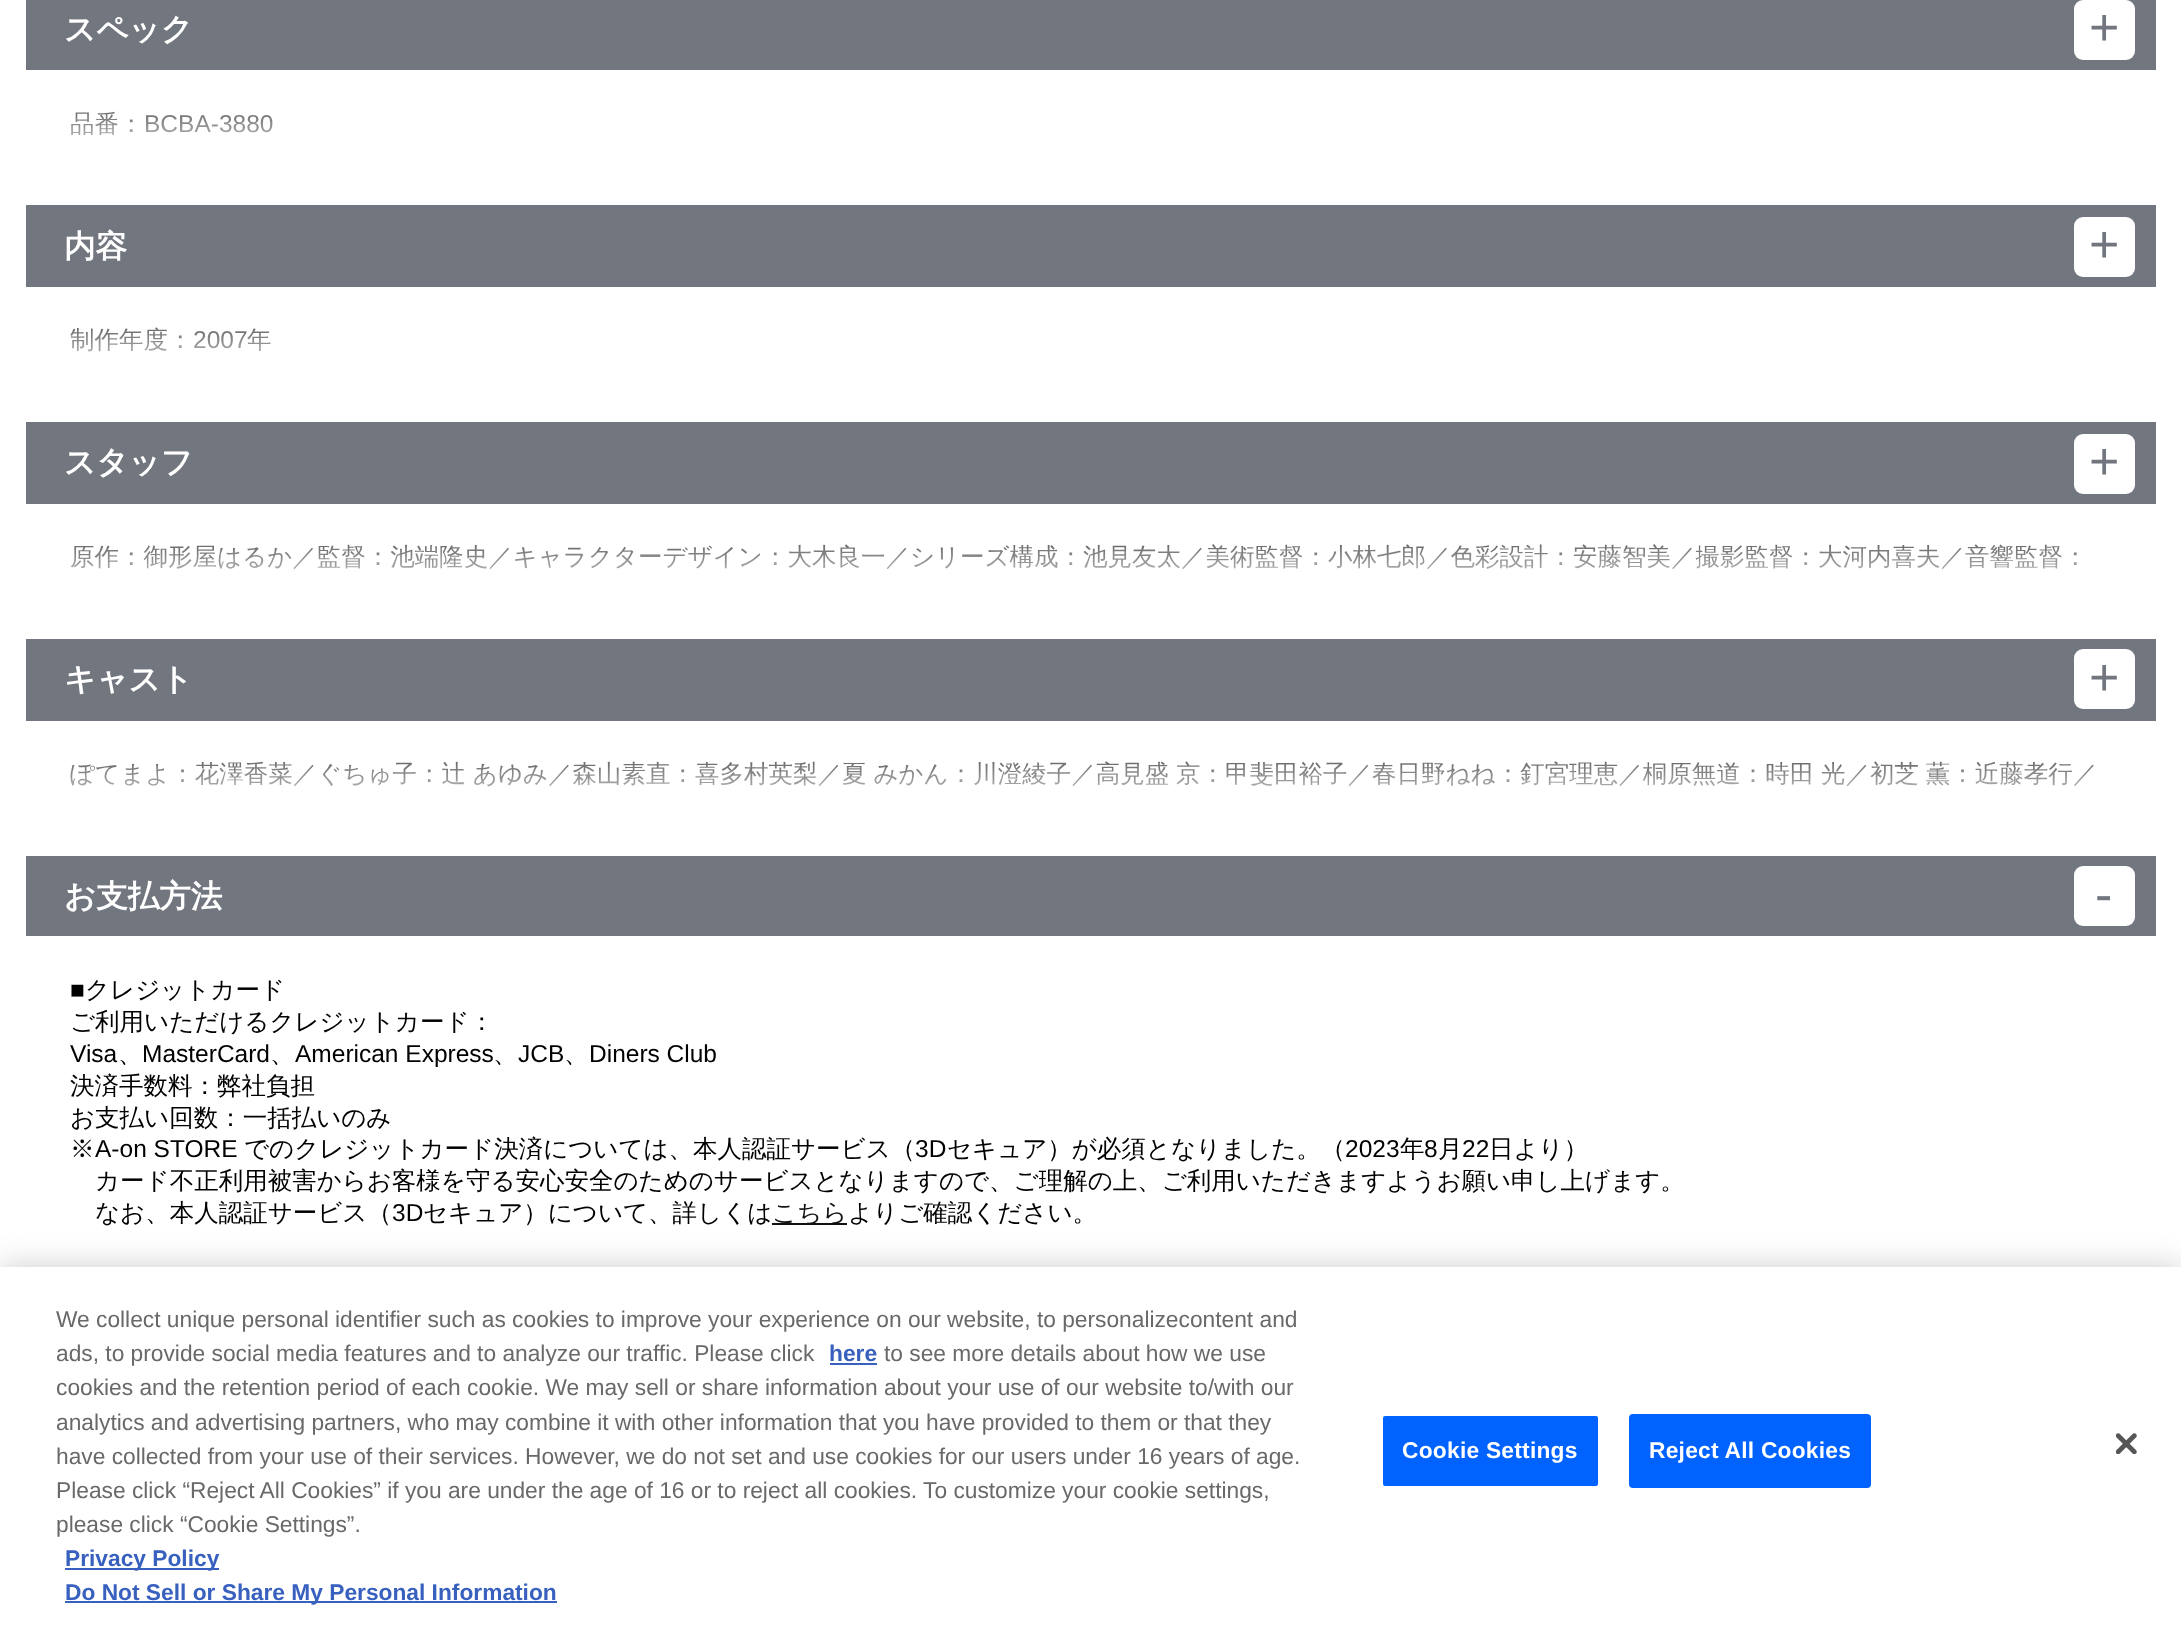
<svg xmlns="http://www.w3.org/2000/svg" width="2181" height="1627">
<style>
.a{font:bold 31.5px WenQuanYi Zen Hei;fill:#fff}
.b{font:52px Liberation Sans;fill:#72767f}
.c{font:500 24.5px WenQuanYi Zen Hei;fill:#000}
.d{font:24.5px Liberation Sans;fill:#000}
.e{font:500 24.5px WenQuanYi Zen Hei;fill:#111}
.f{font:22.75px Liberation Sans;fill:#696969}
.g{font:bold 22.75px Liberation Sans;fill:#3860be}
.h{font:bold 22.75px Liberation Sans;letter-spacing:0.25px;fill:#fff}
</style>
<defs>
<linearGradient id="g1" gradientUnits="userSpaceOnUse" x1="1091" y1="70" x2="1091" y2="168"><stop offset="0" stop-color="#fff" stop-opacity="0"/><stop offset="1" stop-color="#fff"/></linearGradient>
<linearGradient id="g2" gradientUnits="userSpaceOnUse" x1="1091" y1="287" x2="1091" y2="385"><stop offset="0" stop-color="#fff" stop-opacity="0"/><stop offset="1" stop-color="#fff"/></linearGradient>
<linearGradient id="g3" gradientUnits="userSpaceOnUse" x1="1091" y1="504" x2="1091" y2="602"><stop offset="0" stop-color="#fff" stop-opacity="0"/><stop offset="1" stop-color="#fff"/></linearGradient>
<linearGradient id="g4" gradientUnits="userSpaceOnUse" x1="1091" y1="721" x2="1091" y2="819"><stop offset="0" stop-color="#fff" stop-opacity="0"/><stop offset="1" stop-color="#fff"/></linearGradient>
</defs>
<rect width="100%" height="100%" fill="#fff"/>
<path fill="#72767f" d="M26 0h2130v70H26z"/>
<rect fill="#fff" x="2074" width="61" height="60" rx="9"/>
<path fill="#72767f" d="M26 205h2130v82H26z"/>
<rect fill="#fff" x="2074" y="217" width="61" height="60" rx="9"/>
<path fill="#72767f" d="M26 422h2130v82H26z"/>
<rect fill="#fff" x="2074" y="434" width="61" height="60" rx="9"/>
<path fill="#72767f" d="M26 639h2130v82H26z"/>
<rect fill="#fff" x="2074" y="649" width="61" height="60" rx="9"/>
<path fill="#72767f" d="M26 856h2130v80H26z"/>
<rect fill="#fff" x="2074" y="866" width="61" height="60" rx="9"/>
<path fill="#111" d="M772 1223h75v2H772z"/>
<path fill="#00000033" filter="blur(16px)" d="M0 1267h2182v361H0z"/>
<path fill="#fff" d="M0 1267h2181v360H0z"/>
<path fill="#3860be" d="M830 1363h47v2H830z"/>
<path fill="#3860be" d="M65 1568h154v2H65z"/>
<path fill="#3860be" d="M65 1601h492v2H65z"/>
<rect fill="#0062ff" stroke="#fff" stroke-width="2" x="1382" y="1415" width="217" height="72" rx="3"/>
<rect fill="#0062ff" stroke="#0062ff" stroke-width="2" x="1630" y="1415" width="240" height="72" rx="3"/>
<image href="1.png" x="2116" y="1433" width="21" height="21"/>
<text class="a" x="64" y="40">スペック</text>
<text class="b" x="2089" y="45">+</text>
<text class="c" x="70" y="132">品番：</text>
<text class="d" x="144" y="132">BCBA-3880</text>
<path fill="url(#g1)" d="M71 111h202v24H71z"/>
<text class="a" x="64" y="257">内容</text>
<text class="b" x="2089" y="262">+</text>
<text class="c" x="70" y="348">制作年度：</text>
<text class="d" x="193" y="348">2007</text>
<text class="c" x="247" y="348">年</text>
<path fill="url(#g2)" d="M70 327h201v25H70z"/>
<text class="a" x="64" y="473">スタッフ</text>
<text class="b" x="2089" y="479">+</text>
<text class="c" x="70" y="565">原作：御形屋はるか／監督：池端隆史／キャラクターデザイン：大木良一／シリーズ構成：池見友太／美術監督：小林七郎／色彩設計：安藤智美／撮影監督：大河内喜夫／音響監督：</text>
<path fill="url(#g3)" d="M71 544h2007v26H71z"/>
<text class="a" x="64" y="690">キャスト</text>
<text class="b" x="2089" y="695">+</text>
<text class="c" x="70" y="782" word-spacing="-0.5">ぽてまよ：花澤香菜／ぐちゅ子：辻 あゆみ／森山素直：喜多村英梨／夏 みかん：川澄綾子／高見盛 京：甲斐田裕子／春日野ねね：釘宮理恵／桐原無道：時田 光／初芝 薫：近藤孝行／</text>
<path fill="url(#g4)" d="M70 761h2024v26H70z"/>
<text class="a" x="64" y="907">お支払方法</text>
<text class="b" x="2095" y="912">-</text>
<text class="d" x="70" y="998">■</text>
<text class="c" x="85" y="998">クレジットカード</text>
<text class="c" x="70" y="1030">ご利用いただけるクレジットカード：</text>
<text class="d" x="70" y="1062">Visa</text>
<text class="c" x="118" y="1062">、</text>
<text class="d" x="142" y="1062">MasterCard</text>
<text class="c" x="270" y="1062">、</text>
<text class="d" x="295" y="1062">American Express</text>
<text class="c" x="493" y="1062">、</text>
<text class="d" x="518" y="1062">JCB</text>
<text class="c" x="564" y="1062">、</text>
<text class="d" x="589" y="1062">Diners Club</text>
<text class="c" x="70" y="1094">決済手数料：弊社負担</text>
<text class="c" x="70" y="1126">お支払い回数：一括払いのみ</text>
<text class="c" x="70" y="1157">※</text>
<text class="d" x="95" y="1157">A-on STORE</text>
<text class="c" x="244" y="1157">でのクレジットカード決済については、本人認証サービス（</text>
<text class="d" x="915" y="1157">3D</text>
<text class="c" x="947" y="1157">セキュア）が必須となりました。（</text>
<text class="d" x="1345" y="1157">2023</text>
<text class="c" x="1400" y="1157">年</text>
<text class="d" x="1424" y="1157">8</text>
<text class="c" x="1438" y="1157">月</text>
<text class="d" x="1462" y="1157">22</text>
<text class="c" x="1489" y="1157">日より）</text>
<text class="c" x="95" y="1189">カード不正利用被害からお客様を守る安心安全のためのサービスとなりますので、ご理解の上、ご利用いただきますようお願い申し上げます。</text>
<text class="c" x="95" y="1221">なお、本人認証サービス（</text>
<text class="d" x="392" y="1221">3D</text>
<text class="c" x="423" y="1221">セキュア）について、詳しくは</text>
<text class="e" x="772" y="1221">こちら</text>
<text class="c" x="848" y="1221">よりご確認ください。</text>
<text class="f" x="56" y="1327">We collect unique personal identifier such as cookies to improve your experience on our website, to personalizecontent and</text>
<text class="f" x="56" y="1361">ads, to provide social media features and to analyze our traffic. Please click</text>
<text class="g" x="829" y="1361">here</text>
<text class="f" x="884" y="1361">to see more details about how we use</text>
<text class="f" x="56" y="1395">cookies and the retention period of each cookie. We may sell or share information about your use of our website to/with our</text>
<text class="f" x="56" y="1430">analytics and advertising partners, who may combine it with other information that you have provided to them or that they</text>
<text class="f" x="56" y="1464">have collected from your use of their services. However, we do not set and use cookies for our users under 16 years of age.</text>
<text class="f" x="56" y="1498">Please click “Reject All Cookies” if you are under the age of 16 or to reject all cookies. To customize your cookie settings,</text>
<text class="f" x="56" y="1532">please click “Cookie Settings”.</text>
<text class="g" x="65" y="1566">Privacy Policy</text>
<text class="g" x="65" y="1600">Do Not Sell or Share My Personal Information</text>
<text class="h" x="1402" y="1458">Cookie Settings</text>
<text class="h" x="1649" y="1458">Reject All Cookies</text>
</svg>
